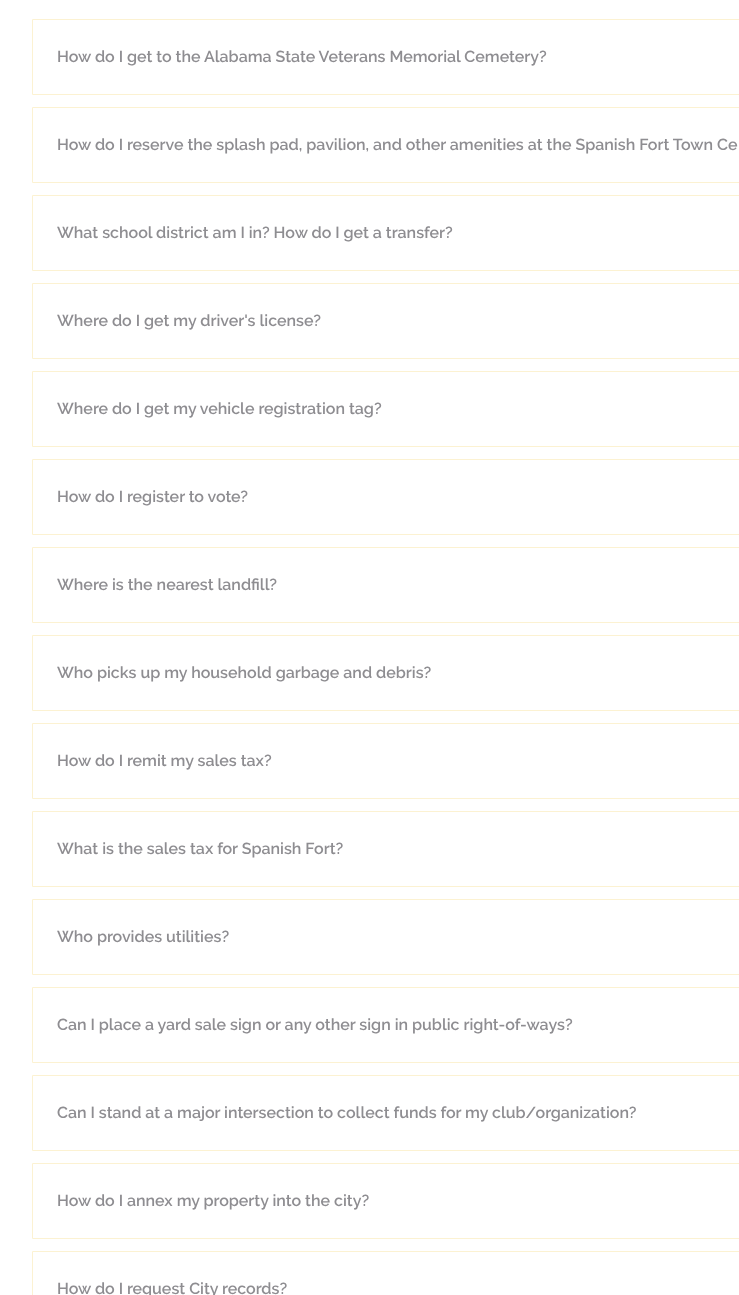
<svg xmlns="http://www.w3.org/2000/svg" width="739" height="1295">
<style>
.a{font:600 16px Raleway;fill:#8e8d91}
</style>
<rect width="100%" height="100%" fill="#fff"/>
<path fill="none" stroke="#fcf2d2" d="M32.5 19.5h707v75H32.5z"/>
<path fill="none" stroke="#fcf2d2" d="M32.5 107.5h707v75H32.5z"/>
<path fill="none" stroke="#fcf2d2" d="M32.5 195.5h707v75H32.5z"/>
<path fill="none" stroke="#fcf2d2" d="M32.5 283.5h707v75H32.5z"/>
<path fill="none" stroke="#fcf2d2" d="M32.5 371.5h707v75H32.5z"/>
<path fill="none" stroke="#fcf2d2" d="M32.5 459.5h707v75H32.5z"/>
<path fill="none" stroke="#fcf2d2" d="M32.5 547.5h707v75H32.5z"/>
<path fill="none" stroke="#fcf2d2" d="M32.5 635.5h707v75H32.5z"/>
<path fill="none" stroke="#fcf2d2" d="M32.5 723.5h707v75H32.5z"/>
<path fill="none" stroke="#fcf2d2" d="M32.5 811.5h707v75H32.5z"/>
<path fill="none" stroke="#fcf2d2" d="M32.5 899.5h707v75H32.5z"/>
<path fill="none" stroke="#fcf2d2" d="M32.5 987.5h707v75H32.5z"/>
<path fill="none" stroke="#fcf2d2" d="M32.5 1075.5h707v75H32.5z"/>
<path fill="none" stroke="#fcf2d2" d="M32.5 1163.5h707v75H32.5z"/>
<path fill="none" stroke="#fcf2d2" d="M32.5 1251.5h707v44H32.5z"/>
<text class="a" x="57" y="62">How do I get to the Alabama State Veterans Memorial Cemetery?</text>
<text class="a" x="57" y="150">How do I reserve the splash pad, pavilion, and other amenities at the Spanish Fort Town Ce</text>
<text class="a" x="57" y="238">What school district am I in? How do I get a transfer?</text>
<text class="a" x="57" y="326">Where do I get my driver's license?</text>
<text class="a" x="57" y="414">Where do I get my vehicle registration tag?</text>
<text class="a" x="57" y="502">How do I register to vote?</text>
<text class="a" x="57" y="590">Where is the nearest landfill?</text>
<text class="a" x="57" y="678">Who picks up my household garbage and debris?</text>
<text class="a" x="57" y="766">How do I remit my sales tax?</text>
<text class="a" x="57" y="854">What is the sales tax for Spanish Fort?</text>
<text class="a" x="57" y="942">Who provides utilities?</text>
<text class="a" x="57" y="1030">Can I place a yard sale sign or any other sign in public right-of-ways?</text>
<text class="a" x="57" y="1118">Can I stand at a major intersection to collect funds for my club/organization?</text>
<text class="a" x="57" y="1206">How do I annex my property into the city?</text>
<text class="a" x="57" y="1294">How do I request City records?</text>
</svg>
